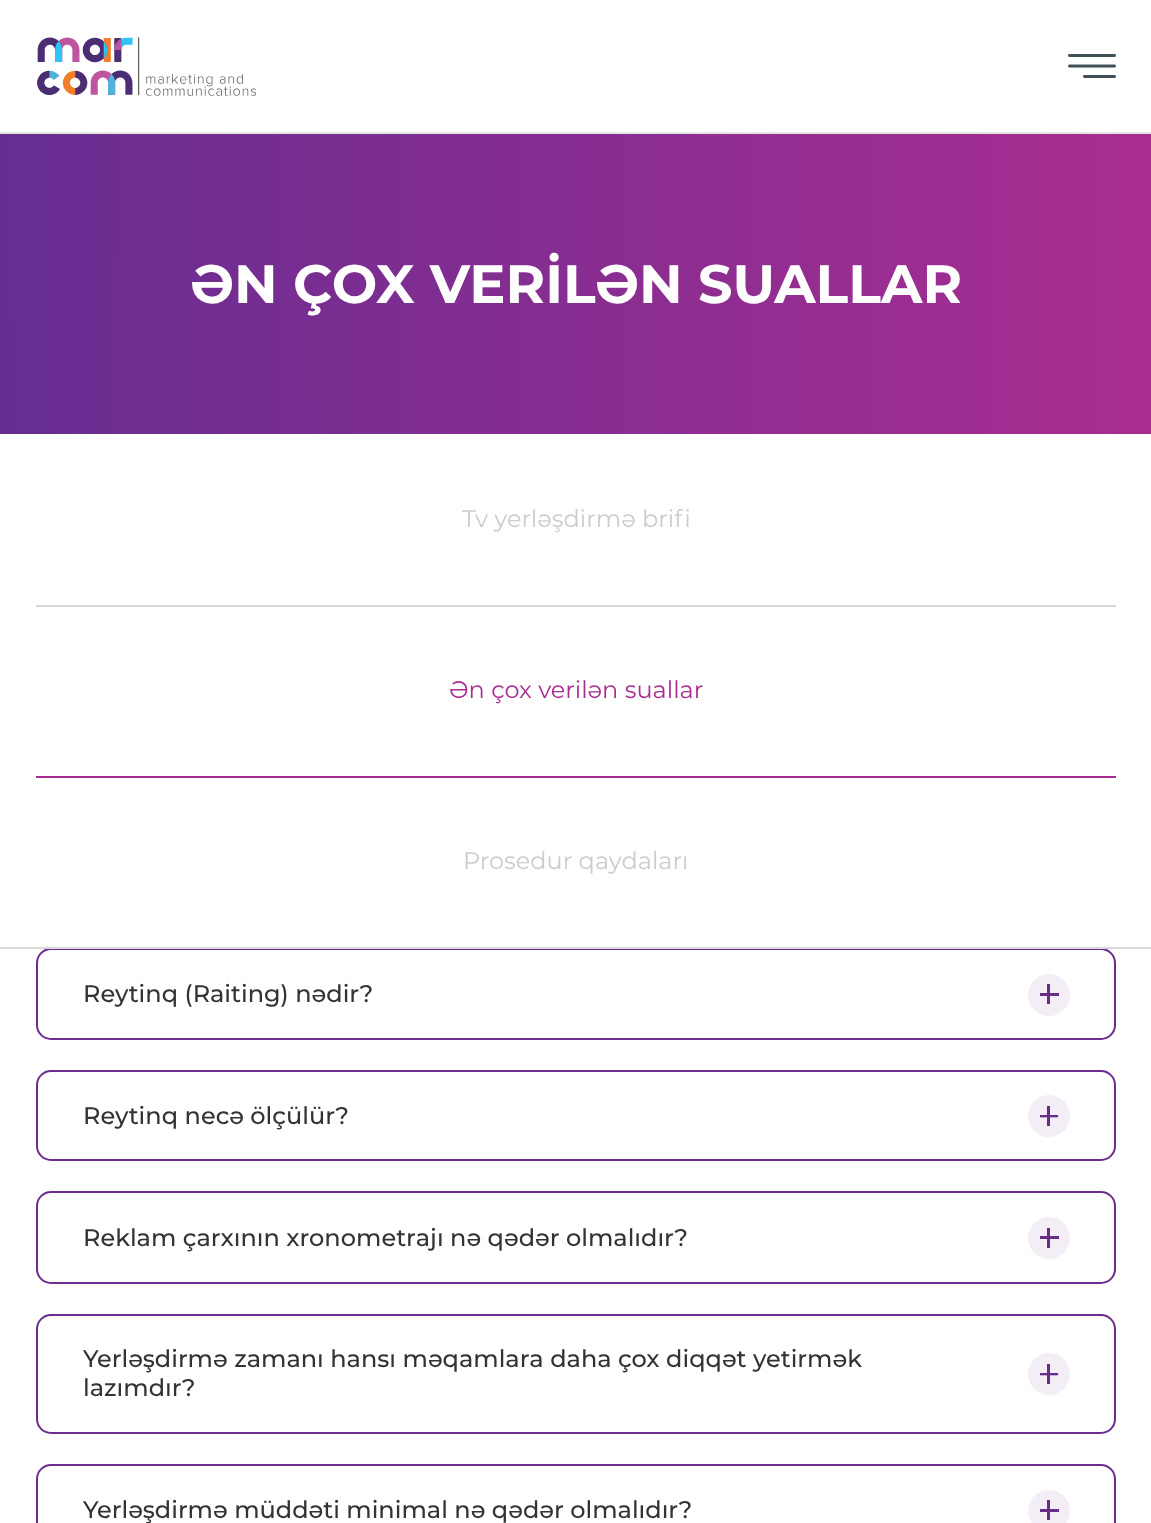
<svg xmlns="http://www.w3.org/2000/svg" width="1151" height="1523">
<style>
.a{font:bold 54px Montserrat;fill:#fff}
.b{font:24px Montserrat;fill:#ccc}
.c{font:24px Montserrat;fill:#a92d91}
.d{font:500 24px Montserrat;fill:#333}
</style>
<defs>
<linearGradient id="g1" gradientUnits="userSpaceOnUse" x1="0" y1="284" x2="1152" y2="283"><stop offset="0" stop-color="#662d91"/><stop offset="1" stop-color="#a92d91"/></linearGradient>
</defs>
<rect width="100%" height="100%" fill="#fff"/>
<path fill="#e5e5e5" d="M0 132h1151v2H0z"/>
<image href="1.png" x="37" y="37" width="219" height="59"/>
<image href="2.png" x="1068" y="54" width="48" height="24"/>
<path fill="url(#g1)" d="M0 134h1151v300H0z"/>
<path fill="#dadada" d="M0 947h1151v2H0z"/>
<path fill="#dadada" d="M36 605h1080v2H36z"/>
<path fill="#a92d91" d="M36 776h1080v2H36z"/>
<rect fill="none" stroke="#6d2d90" stroke-width="2" x="37" y="949" width="1078" height="90" rx="14"/>
<path fill="#dadada" d="M46 948h1060v1H46z"/>
<circle fill="#f3eef6" cx="1049" cy="995" r="21"/>
<path fill="#6a2c8b" d="M1047 984h3v20H1047z"/>
<path fill="#6a2c8b" d="M1040 993h19v3H1040z"/>
<rect fill="none" stroke="#6d2d90" stroke-width="2" x="37" y="1071" width="1078" height="89" rx="14"/>
<circle fill="#f3eef6" cx="1049" cy="1116" r="21"/>
<path fill="#6a2c8b" d="M1047 1106h3v20H1047z"/>
<image href="3.png" x="1040" y="1115" width="19" height="3"/>
<rect fill="none" stroke="#6d2d90" stroke-width="2" x="37" y="1192" width="1078" height="91" rx="14"/>
<circle fill="#f3eef6" cx="1049" cy="1238" r="21"/>
<path fill="#6a2c8b" d="M1047 1228h3v20H1047z"/>
<path fill="#6a2c8b" d="M1040 1236h19v3H1040z"/>
<rect fill="none" stroke="#6d2d90" stroke-width="2" x="37" y="1315" width="1078" height="118" rx="14"/>
<circle fill="#f3eef6" cx="1049" cy="1374" r="21"/>
<path fill="#6a2c8b" d="M1047 1364h3v20H1047z"/>
<image href="3.png" x="1040" y="1373" width="19" height="3"/>
<rect fill="none" stroke="#6d2d90" stroke-width="2" x="37" y="1465" width="1078" height="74" rx="14"/>
<circle fill="#f3eef6" cx="1049" cy="1511" r="21"/>
<path fill="#6a2c8b" d="M1047 1500h3v20H1047z"/>
<path fill="#6a2c8b" d="M1040 1509h19v3H1040z"/>
<text class="a" x="190" y="303">ƏN ÇOX VERİLƏN SUALLAR</text>
<text class="b" x="462" y="527">Tv yerləşdirmə brifi</text>
<text class="c" x="449" y="698">Ən çox verilən suallar</text>
<text class="b" x="463" y="869">Prosedur qaydaları</text>
<text class="d" x="83" y="1002">Reytinq (Raiting) nədir?</text>
<text class="d" x="83" y="1124">Reytinq necə ölçülür?</text>
<text class="d" x="83" y="1246">Reklam çarxının xronometrajı nə qədər olmalıdır?</text>
<text class="d" x="83" y="1367">Yerləşdirmə zamanı hansı məqamlara daha çox diqqət yetirmək</text>
<text class="d" x="83" y="1396">lazımdır?</text>
<text class="d" x="83" y="1518">Yerləşdirmə müddəti minimal nə qədər olmalıdır?</text>
</svg>
